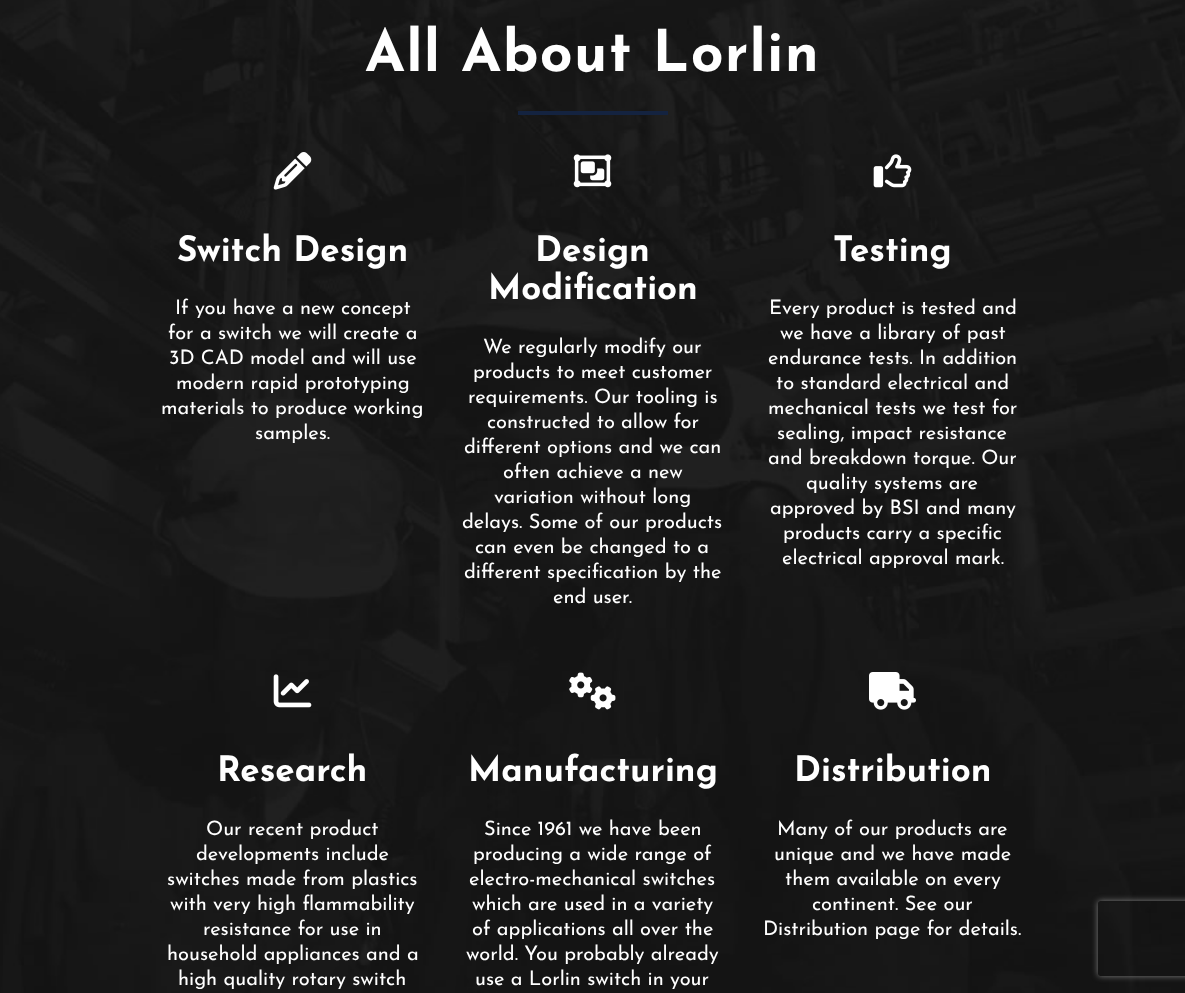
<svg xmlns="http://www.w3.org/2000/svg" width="1185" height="993">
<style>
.a{font:bold 57.5px Josefin Sans;letter-spacing:1.25px;fill:#fff}
.b{font:bold 35px Josefin Sans;fill:#fff}
.c{font:20px Josefin Sans;fill:#fff}
</style>
<defs>
<clipPath id="clip1"><path d="M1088 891h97v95h-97zm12.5 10h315c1.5 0 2.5 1 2.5 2.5v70c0 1.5-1 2.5-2.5 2.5h-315c-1.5 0-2.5-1-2.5-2.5v-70c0-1.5 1-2.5 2.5-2.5z" clip-rule="evenodd"/></clipPath>
</defs>
<rect width="100%" height="100%" fill="#fff"/>
<image href="1.png" x="0" y="0" width="1185" height="993"/>
<path fill="#142340" d="M518 111h150v4H518z"/>
<image href="2.png" x="273" y="152" width="39" height="38"/>
<image href="3.png" x="573" y="154" width="39" height="34"/>
<image href="4.png" x="873" y="154" width="39" height="34"/>
<image href="5.png" x="273" y="674" width="39" height="34"/>
<image href="6.png" x="569" y="672" width="47" height="38"/>
<image href="7.png" x="869" y="672" width="47" height="38"/>
<g clip-path="url(#clip1)">
<rect fill="#808080" filter="blur(3px)" x="1098" y="901" width="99" height="75" rx="2.5"/>
</g>
<text class="a" x="365" y="71">All About Lorlin</text>
<text class="b" x="177" y="261">Switch Design</text>
<text class="c" x="175" y="314">If you have a new concept</text>
<text class="c" x="168" y="339">for a switch we will create a</text>
<text class="c" x="169" y="364">3D CAD model and will use</text>
<text class="c" x="176" y="389">modern rapid prototyping</text>
<text class="c" x="161" y="414">materials to produce working</text>
<text class="c" x="255" y="439">samples.</text>
<text class="b" x="535" y="261">Design</text>
<text class="b" x="488" y="299">Modification</text>
<text class="c" x="483" y="353">We regularly modify our</text>
<text class="c" x="473" y="378">products to meet customer</text>
<text class="c" x="468" y="403">requirements. Our tooling is</text>
<text class="c" x="487" y="428">constructed to allow for</text>
<text class="c" x="464" y="453">different options and we can</text>
<text class="c" x="503" y="478">often achieve a new</text>
<text class="c" x="494" y="503">variation without long</text>
<text class="c" x="462" y="528">delays. Some of our products</text>
<text class="c" x="475" y="553">can even be changed to a</text>
<text class="c" x="464" y="578">different specification by the</text>
<text class="c" x="553" y="603">end user.</text>
<text class="b" x="833" y="261">Testing</text>
<text class="c" x="769" y="314">Every product is tested and</text>
<text class="c" x="780" y="339">we have a library of past</text>
<text class="c" x="768" y="364">endurance tests. In addition</text>
<text class="c" x="776" y="389">to standard electrical and</text>
<text class="c" x="768" y="414">mechanical tests we test for</text>
<text class="c" x="777" y="439">sealing, impact resistance</text>
<text class="c" x="768" y="464">and breakdown torque. Our</text>
<text class="c" x="806" y="489">quality systems are</text>
<text class="c" x="770" y="514">approved by BSI and many</text>
<text class="c" x="783" y="539">products carry a specific</text>
<text class="c" x="782" y="564">electrical approval mark.</text>
<text class="b" x="217" y="781">Research</text>
<text class="c" x="206" y="835">Our recent product</text>
<text class="c" x="196" y="860">developments include</text>
<text class="c" x="167" y="885">switches made from plastics</text>
<text class="c" x="170" y="910">with very high flammability</text>
<text class="c" x="203" y="935">resistance for use in</text>
<text class="c" x="167" y="960">household appliances and a</text>
<text class="c" x="178" y="985">high quality rotary switch</text>
<text class="b" x="468" y="781">Manufacturing</text>
<text class="c" x="484" y="835">Since 1961 we have been</text>
<text class="c" x="473" y="860">producing a wide range of</text>
<text class="c" x="469" y="885">electro-mechanical switches</text>
<text class="c" x="472" y="910">which are used in a variety</text>
<text class="c" x="472" y="935">of applications all over the</text>
<text class="c" x="466" y="960">world. You probably already</text>
<text class="c" x="475" y="985">use a Lorlin switch in your</text>
<text class="b" x="794" y="781">Distribution</text>
<text class="c" x="777" y="835">Many of our products are</text>
<text class="c" x="774" y="860">unique and we have made</text>
<text class="c" x="785" y="885">them available on every</text>
<text class="c" x="812" y="910">continent. See our</text>
<text class="c" x="763" y="935">Distribution page for details.</text>
</svg>
